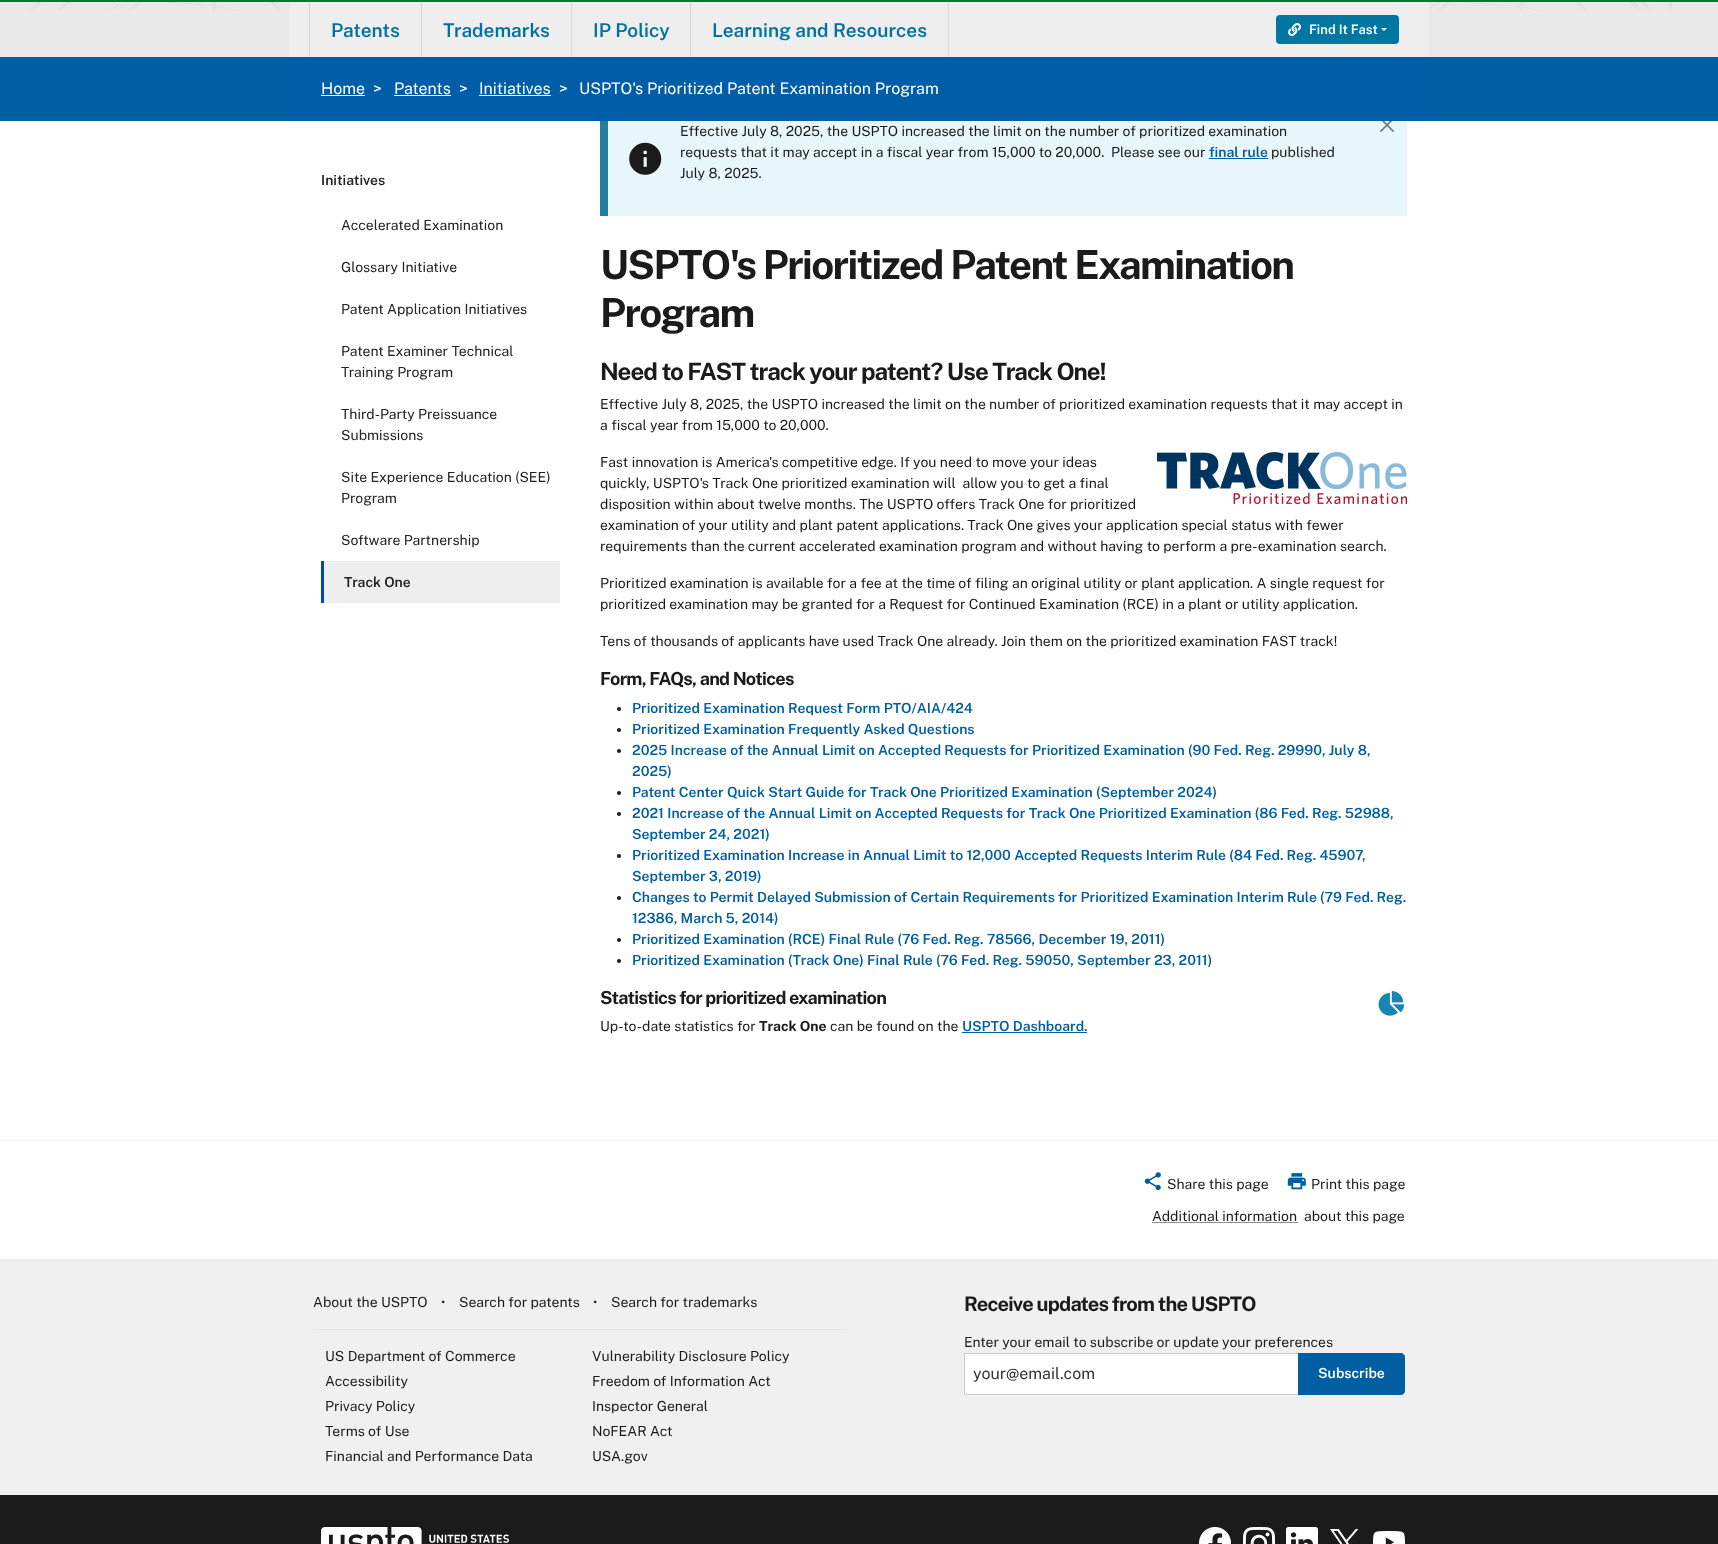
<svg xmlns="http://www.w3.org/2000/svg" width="1718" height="1544">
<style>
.a{font:600 19px Public Sans;fill:#0071a2}
.b{font:600 13px Public Sans;fill:#fff}
.c{font:16px Public Sans;fill:#fff}
.d{font:600 14px Public Sans;fill:#222}
.e{font:14px Public Sans;fill:#222}
.f{font:14px Public Sans;fill:#1b1b1b}
.g{font:600 14px Public Sans;fill:#005ea2}
.h{font:bold 40px Public Sans;letter-spacing:-1.6px;fill:#1b1b1b}
.i{font:bold 24px Public Sans;letter-spacing:-0.95px;fill:#1b1b1b}
.j{font:bold 18px Public Sans;letter-spacing:-0.7px;fill:#1b1b1b}
.k{font:bold 14px Public Sans;fill:#1b1b1b}
.l{font:bold 20px Public Sans;letter-spacing:-0.8px;fill:#1b1b1b}
.m{font:16px Public Sans;fill:#333}
.n{font:600 14px Public Sans;fill:#fff}
</style>
<rect width="100%" height="100%" fill="#fff"/>
<path fill="#e9e9e9" d="M0 2h1718v55H0z"/>
<image href="1.png" x="29" y="2" width="1644" height="9"/>
<path fill="#007a33" d="M0 0h1718v2H0z"/>
<path fill="#eee" d="M289 2h1140v55H289z"/>
<path fill="#d9d9d6" d="M421 2h1v55H421z"/>
<path fill="#d9d9d6" d="M309 2h1v55H309z"/>
<path fill="#d9d9d6" d="M571 2h1v55H571z"/>
<path fill="#d9d9d6" d="M690 2h1v55H690z"/>
<path fill="#d9d9d6" d="M948 2h1v55H948z"/>
<rect fill="#0076a3" x="1276" y="15" width="123" height="29" rx="4"/>
<image href="2.png" x="1288" y="23" width="13" height="13"/>
<path fill="#fff" d="M1381 28h6l-3 3z"/>
<path fill="#005ea2" d="M0 57h1718v64H0z"/>
<path fill="#005da8" d="M289 57h1140v64H289z"/>
<path fill="#fff" d="M321 95h44v1H321z"/>
<path fill="#fff" d="M394 95h57v1H394z"/>
<path fill="#fff" d="M479 95h72v1H479z"/>
<path fill="#eee" d="M324 561h236v42H324z"/>
<path fill="#004c97" d="M321 561h3v42H321z"/>
<path fill="#e7f6f8" d="M608 121h799v95H608z"/>
<path fill="#207ea0" d="M600 121h8v95H600z"/>
<image href="3.png" x="629" y="142" width="33" height="33"/>
<path fill="#005ea2" d="M1209 158h59v1H1209z"/>
<image href="4.png" x="1380" y="121" width="14" height="11"/>
<image href="5.png" x="1157" y="452" width="250" height="52"/>
<circle fill="#1b1b1b" cx="619" cy="709" r="2"/>
<circle fill="#1b1b1b" cx="619" cy="730" r="2"/>
<circle fill="#1b1b1b" cx="619" cy="751" r="2"/>
<circle fill="#1b1b1b" cx="619" cy="793" r="2"/>
<circle fill="#1b1b1b" cx="619" cy="814" r="2"/>
<circle fill="#1b1b1b" cx="619" cy="856" r="2"/>
<circle fill="#1b1b1b" cx="619" cy="898" r="2"/>
<circle fill="#1b1b1b" cx="619" cy="940" r="2"/>
<circle fill="#1b1b1b" cx="619" cy="961" r="2"/>
<image href="6.png" x="1378" y="991" width="27" height="25"/>
<path fill="#005ea2" d="M962 1032h125v1H962z"/>
<path fill="#f0f0f0" d="M0 1140h1718v1H0z"/>
<image href="7.png" x="1144" y="1172" width="17" height="19"/>
<image href="8.png" x="1287" y="1173" width="19" height="17"/>
<path fill="none" stroke="#1b1b1b" stroke-dasharray="1 1" d="M1152.5 1222.5h145"/>
<path fill="#00000026" filter="blur(8px)" d="M0 1267h1718v236H0z"/>
<path fill="#f0f0f0" d="M0 1259h1718v236H0z"/>
<path fill="#e6e6e6" d="M313 1329h534v1H313z"/>
<path fill="#fff" stroke="#ccc" d="M964.5 1353.5h334v41H964.5z"/>
<path fill="#005ea2" d="M1298 1353h103c2 0 4 2 4 4v34c0 2-2 4-4 4h-103z"/>
<path fill="#1b1b1b" d="M0 1495h1718v49H0z"/>
<image href="9.png" x="321" y="1527" width="188" height="17"/>
<image href="10.png" x="1199" y="1527" width="32" height="17"/>
<image href="11.png" x="1243" y="1527" width="32" height="17"/>
<image href="12.png" x="1286" y="1527" width="32" height="17"/>
<image href="13.png" x="1330" y="1529" width="29" height="15"/>
<image href="14.png" x="1373" y="1531" width="32" height="13"/>
<text class="a" x="331" y="37">Patents</text>
<text class="a" x="443" y="37">Trademarks</text>
<text class="a" x="593" y="37">IP Policy</text>
<text class="a" x="712" y="37">Learning and Resources</text>
<text class="b" x="1309" y="34">Find It Fast</text>
<text class="c" x="321" y="94">Home</text>
<text class="c" x="373" y="94">&gt;</text>
<text class="c" x="394" y="94">Patents</text>
<text class="c" x="459" y="94">&gt;</text>
<text class="c" x="479" y="94">Initiatives</text>
<text class="c" x="559" y="94">&gt;</text>
<text class="c" x="579" y="94">USPTO's Prioritized Patent Examination Program</text>
<text class="d" x="321" y="185">Initiatives</text>
<text class="e" x="341" y="230">Accelerated Examination</text>
<text class="e" x="341" y="272">Glossary Initiative</text>
<text class="e" x="341" y="314">Patent Application Initiatives</text>
<text class="e" x="341" y="356">Patent Examiner Technical</text>
<text class="e" x="341" y="377">Training Program</text>
<text class="e" x="341" y="419">Third-Party Preissuance</text>
<text class="e" x="341" y="440">Submissions</text>
<text class="e" x="341" y="482">Site Experience Education (SEE)</text>
<text class="e" x="341" y="503">Program</text>
<text class="e" x="341" y="545">Software Partnership</text>
<text class="d" x="344" y="587">Track One</text>
<text class="f" x="680" y="136">Effective July 8, 2025, the USPTO increased the limit on the number of prioritized examination</text>
<text class="f" xml:space="preserve" x="680" y="157">requests that it may accept in a fiscal year from 15,000 to 20,000.  Please see our</text>
<text class="g" x="1209" y="157">final rule</text>
<text class="f" x="1271" y="157">published</text>
<text class="f" x="680" y="178">July 8, 2025.</text>
<text class="h" x="600" y="279">USPTO's Prioritized Patent Examination</text>
<text class="h" x="600" y="327">Program</text>
<text class="i" x="600" y="380">Need to FAST track your patent? Use Track One!</text>
<text class="f" x="600" y="409">Effective July 8, 2025, the USPTO increased the limit on the number of prioritized examination requests that it may accept in</text>
<text class="f" x="600" y="430">a fiscal year from 15,000 to 20,000.</text>
<text class="f" x="600" y="467">Fast innovation is America's competitive edge. If you need to move your ideas</text>
<text class="f" xml:space="preserve" x="600" y="488">quickly, USPTO's Track One prioritized examination will  allow you to get a final</text>
<text class="f" x="600" y="509">disposition within about twelve months. The USPTO offers Track One for prioritized</text>
<text class="f" x="600" y="530">examination of your utility and plant patent applications. Track One gives your application special status with fewer</text>
<text class="f" x="600" y="551">requirements than the current accelerated examination program and without having to perform a pre-examination search.</text>
<text class="f" x="600" y="588">Prioritized examination is available for a fee at the time of filing an original utility or plant application. A single request for</text>
<text class="f" x="600" y="609">prioritized examination may be granted for a Request for Continued Examination (RCE) in a plant or utility application.</text>
<text class="f" x="600" y="646">Tens of thousands of applicants have used Track One already. Join them on the prioritized examination FAST track!</text>
<text class="j" x="600" y="685">Form, FAQs, and Notices</text>
<text class="g" x="632" y="713">Prioritized Examination Request Form PTO/AIA/424</text>
<text class="g" x="632" y="734">Prioritized Examination Frequently Asked Questions</text>
<text class="g" x="632" y="755">2025 Increase of the Annual Limit on Accepted Requests for Prioritized Examination (90 Fed. Reg. 29990, July 8,</text>
<text class="g" x="632" y="776">2025)</text>
<text class="g" x="632" y="797">Patent Center Quick Start Guide for Track One Prioritized Examination (September 2024)</text>
<text class="g" x="632" y="818">2021 Increase of the Annual Limit on Accepted Requests for Track One Prioritized Examination (86 Fed. Reg. 52988,</text>
<text class="g" x="632" y="839">September 24, 2021)</text>
<text class="g" x="632" y="860">Prioritized Examination Increase in Annual Limit to 12,000 Accepted Requests Interim Rule (84 Fed. Reg. 45907,</text>
<text class="g" x="632" y="881">September 3, 2019)</text>
<text class="g" x="632" y="902">Changes to Permit Delayed Submission of Certain Requirements for Prioritized Examination Interim Rule (79 Fed. Reg.</text>
<text class="g" x="632" y="923">12386, March 5, 2014)</text>
<text class="g" x="632" y="944">Prioritized Examination (RCE) Final Rule (76 Fed. Reg. 78566, December 19, 2011)</text>
<text class="g" x="632" y="965">Prioritized Examination (Track One) Final Rule (76 Fed. Reg. 59050, September 23, 2011)</text>
<text class="j" x="600" y="1004">Statistics for prioritized examination</text>
<text class="f" x="600" y="1031">Up-to-date statistics for</text>
<text class="k" x="759" y="1031">Track One</text>
<text class="f" x="830" y="1031">can be found on the</text>
<text class="g" x="962" y="1031">USPTO Dashboard.</text>
<text class="f" x="1167" y="1189">Share this page</text>
<text class="f" x="1311" y="1189">Print this page</text>
<text class="f" x="1152" y="1221">Additional information</text>
<text class="f" x="1304" y="1221">about this page</text>
<text class="f" x="313" y="1307">About the USPTO</text>
<text class="f" x="441" y="1307">•</text>
<text class="f" x="459" y="1307">Search for patents</text>
<text class="f" x="593" y="1307">•</text>
<text class="f" x="611" y="1307">Search for trademarks</text>
<text class="f" x="325" y="1361">US Department of Commerce</text>
<text class="f" x="325" y="1386">Accessibility</text>
<text class="f" x="325" y="1411">Privacy Policy</text>
<text class="f" x="325" y="1436">Terms of Use</text>
<text class="f" x="325" y="1461">Financial and Performance Data</text>
<text class="f" x="592" y="1361">Vulnerability Disclosure Policy</text>
<text class="f" x="592" y="1386">Freedom of Information Act</text>
<text class="f" x="592" y="1411">Inspector General</text>
<text class="f" x="592" y="1436">NoFEAR Act</text>
<text class="f" x="592" y="1461">USA.gov</text>
<text class="l" x="964" y="1311">Receive updates from the USPTO</text>
<text class="f" x="964" y="1347">Enter your email to subscribe or update your preferences</text>
<text class="m" x="973" y="1379">your@email.com</text>
<text class="n" x="1318" y="1378">Subscribe</text>
</svg>
